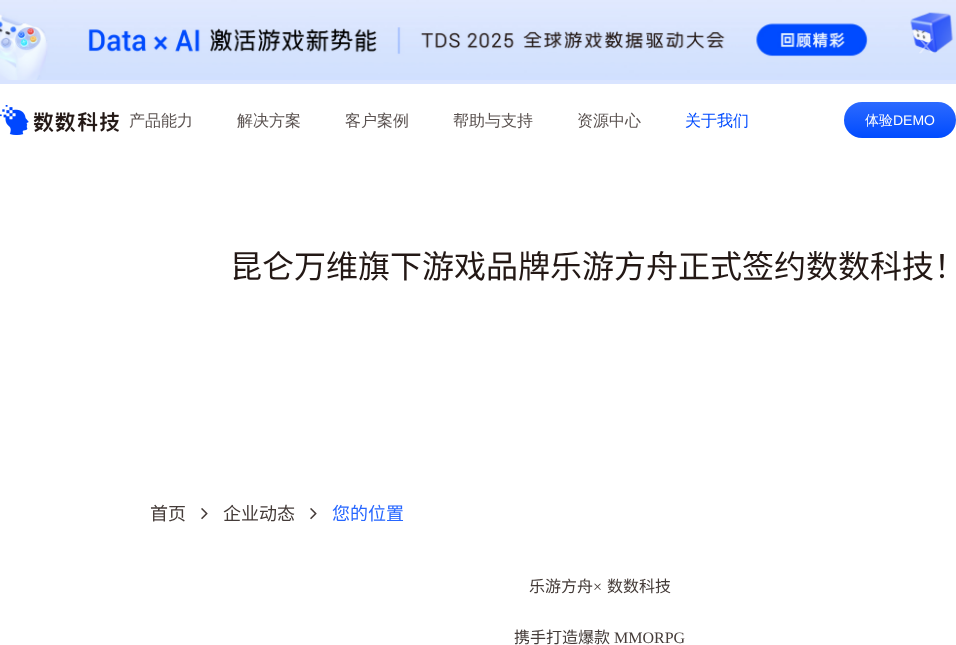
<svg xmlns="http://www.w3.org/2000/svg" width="956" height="645">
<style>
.a{font:500 16px WenQuanYi Zen Hei;fill:#5a5250}
.b{font:500 16px WenQuanYi Zen Hei;fill:#004bff}
.c{font:500 14px WenQuanYi Zen Hei;fill:#fff}
.d{font:14px Liberation Sans;fill:#fff}
.e{font:32px Noto Sans CJK SC;fill:#231815}
.f{font:18px Noto Sans CJK SC;fill:#443b38}
.g{font:18px Noto Sans CJK SC;fill:#2666ff}
.h{font:16px Noto Sans CJK SC;fill:#443b38}
.i{font:16px Liberation Serif;fill:#443b38}
</style>
<defs>
<linearGradient id="g1" gradientUnits="userSpaceOnUse" x1="900" y1="102" x2="900" y2="138"><stop offset="0" stop-color="#2c6aff"/><stop offset="1" stop-color="#004bff"/></linearGradient>
</defs>
<rect width="100%" height="100%" fill="#d9e4ff"/>
<image href="1.png" x="0" y="0" width="956" height="80"/>
<image href="2.png" x="919" y="38" width="14" height="16"/>
<path fill="#fff" d="M0 84h956v561H0z"/>
<image href="3.png" x="0" y="105" width="119" height="30"/>
<rect fill="url(#g1)" x="844" y="102" width="112" height="36" rx="18"/>
<image href="4.png" x="201" y="508" width="7" height="12"/>
<image href="4.png" x="310" y="508" width="7" height="12"/>
<text class="a" x="129" y="126">产品能力</text>
<text class="a" x="237" y="126">解决方案</text>
<text class="a" x="345" y="126">客户案例</text>
<text class="a" x="453" y="126">帮助与支持</text>
<text class="a" x="577" y="126">资源中心</text>
<text class="b" x="685" y="126">关于我们</text>
<text class="c" x="865" y="125">体验</text>
<text class="d" x="893" y="125">DEMO</text>
<text class="e" x="230" y="278">昆仑万维旗下游戏品牌乐游方舟正式签约数数科技！</text>
<text class="f" x="150" y="520">首页</text>
<text class="f" x="223" y="520">企业动态</text>
<text class="g" x="332" y="520">您的位置</text>
<text class="h" x="529" y="592">乐游方舟</text>
<text class="i" x="593" y="592">×</text>
<text class="h" x="607" y="592">数数科技</text>
<text class="h" x="514" y="643">携手打造爆款</text>
<text class="i" x="614" y="643">MMORPG</text>
</svg>
